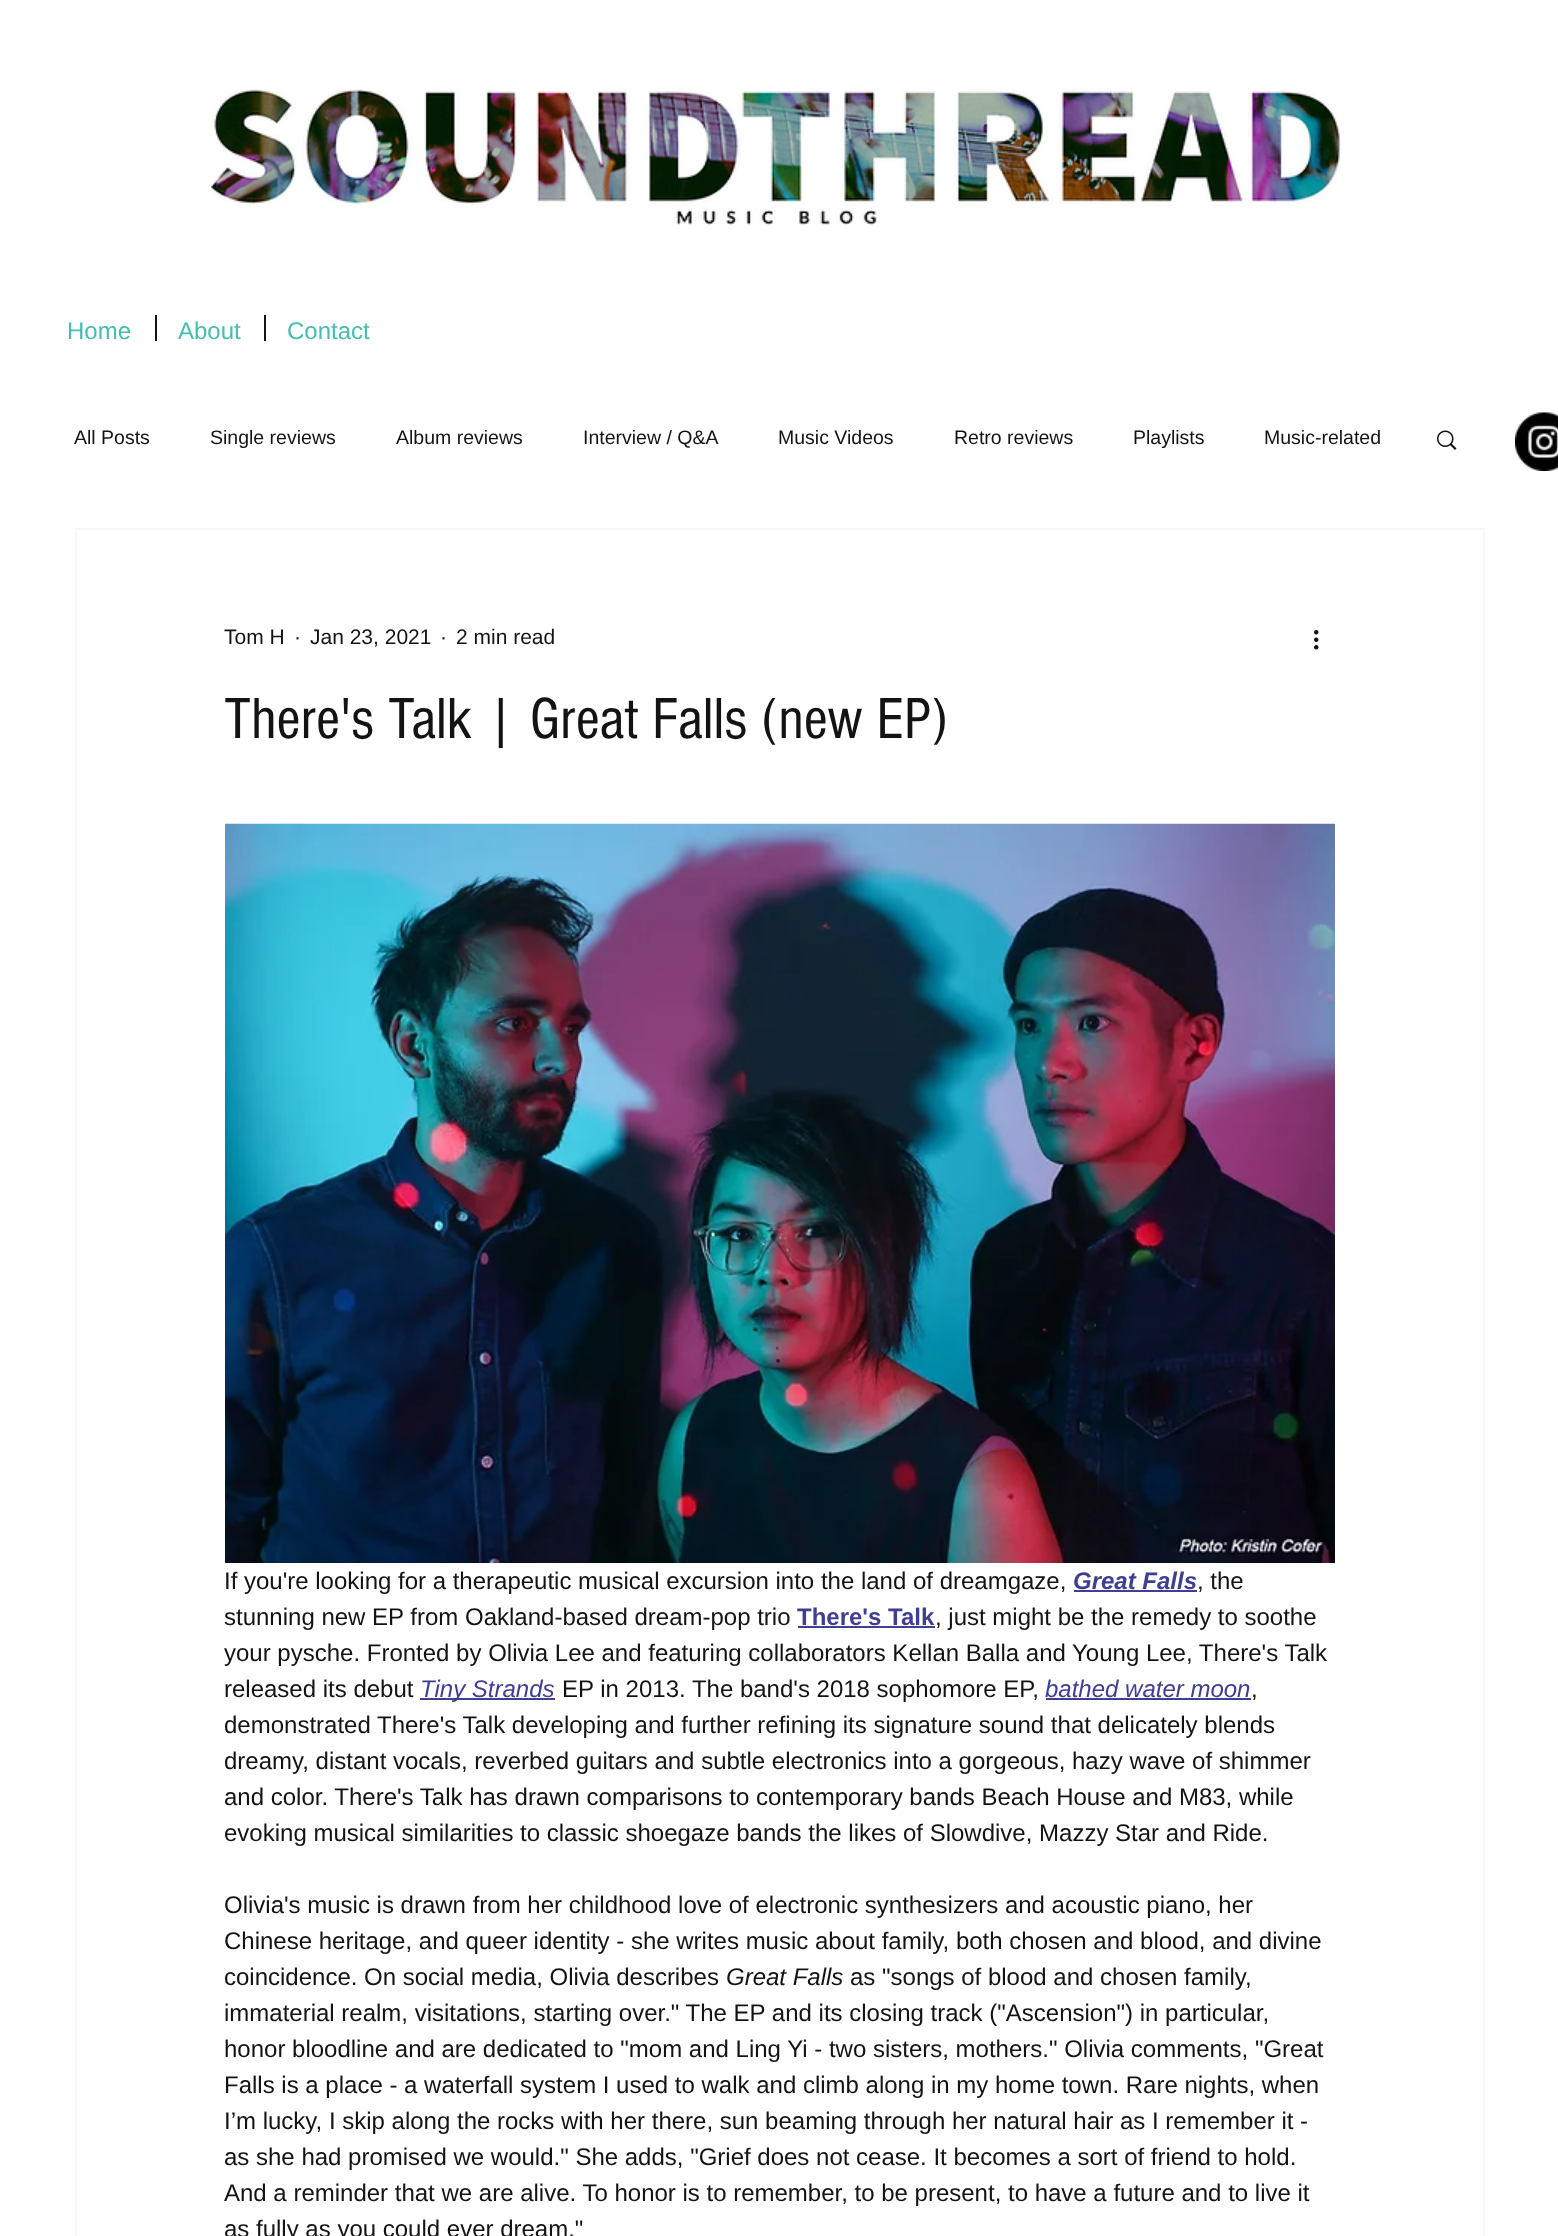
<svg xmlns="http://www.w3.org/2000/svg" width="1558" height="2236">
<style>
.a{font:24px Liberation Sans;fill:#47bcaf}
.b{font:19.5px Liberation Sans;fill:#131313}
.c{font:21px Liberation Sans;fill:#131313}
.d{font:60px 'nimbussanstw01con';fill:#131313}
.e{font:24px Liberation Sans;fill:#131313}
.f{font:italic bold 24px Liberation Sans;fill:#3f3e91}
.g{font:bold 24px Liberation Sans;fill:#3f3e91}
.h{font:italic 24px Liberation Sans;fill:#3f3e91}
.i{font:italic 24px Liberation Sans;fill:#131313}
</style>
<rect width="100%" height="100%" fill="#fff"/>
<image href="1.png" x="211" y="89" width="1130" height="137"/>
<path fill="#131313" d="M155 315h2v26H155z"/>
<path fill="#131313" d="M264 315h2v26H264z"/>
<image href="2.png" x="1437" y="430" width="20" height="20"/>
<path fill="none" stroke="#f6f6f6" stroke-width="2" d="M76 529h1408v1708H76z"/>
<image href="3.png" x="1314" y="630" width="5" height="20"/>
<image href="4.png" x="225" y="823" width="1110" height="740"/>
<path fill="#3f3e91" d="M1074 1590h123v2H1074z"/>
<path fill="#3f3e91" d="M798 1626h137v2H798z"/>
<path fill="#3f3e91" d="M420 1698h135v2H420z"/>
<path fill="#3f3e91" d="M1046 1698h205v2H1046z"/>
<image href="5.png" x="1515" y="412" width="43" height="59"/>
<text class="a" x="67" y="339">Home</text>
<text class="a" x="178" y="339">About</text>
<text class="a" x="287" y="339">Contact</text>
<text class="b" x="74" y="444">All Posts</text>
<text class="b" x="210" y="444">Single reviews</text>
<text class="b" x="396" y="444">Album reviews</text>
<text class="b" x="583" y="444">Interview / Q&amp;A</text>
<text class="b" x="778" y="444">Music Videos</text>
<text class="b" x="954" y="444">Retro reviews</text>
<text class="b" x="1133" y="444">Playlists</text>
<text class="b" x="1264" y="444">Music-related</text>
<text class="c" x="224" y="644">Tom H</text>
<text class="c" x="294" y="644">·</text>
<text class="c" x="310" y="644">Jan 23, 2021</text>
<text class="c" x="440" y="644">·</text>
<text class="c" x="456" y="644">2 min read</text>
<text class="d" x="224" y="738">There's Talk | Great Falls (new EP)</text>
<text class="e" x="224" y="1589">If you're looking for a therapeutic musical excursion into the land of dreamgaze,</text>
<text class="f" x="1073" y="1589">Great Falls</text>
<text class="e" x="1197" y="1589">, the</text>
<text class="e" x="224" y="1625">stunning new EP from Oakland-based dream-pop trio</text>
<text class="g" x="797" y="1625">There's Talk</text>
<text class="e" x="935" y="1625">, just might be the remedy to soothe</text>
<text class="e" x="224" y="1661">your pysche. Fronted by Olivia Lee and featuring collaborators Kellan Balla and Young Lee, There's Talk</text>
<text class="e" x="224" y="1697">released its debut</text>
<text class="h" x="420" y="1697">Tiny Strands</text>
<text class="e" x="562" y="1697">EP in 2013. The band's 2018 sophomore EP,</text>
<text class="h" x="1045" y="1697">bathed water moon</text>
<text class="e" x="1251" y="1697">,</text>
<text class="e" x="224" y="1733">demonstrated There's Talk developing and further refining its signature sound that delicately blends</text>
<text class="e" x="224" y="1769">dreamy, distant vocals, reverbed guitars and subtle electronics into a gorgeous, hazy wave of shimmer</text>
<text class="e" x="224" y="1805">and color. There's Talk has drawn comparisons to contemporary bands Beach House and M83, while</text>
<text class="e" x="224" y="1841">evoking musical similarities to classic shoegaze bands the likes of Slowdive, Mazzy Star and Ride.</text>
<text class="e" x="224" y="1913">Olivia's music is drawn from her childhood love of electronic synthesizers and acoustic piano, her</text>
<text class="e" x="224" y="1949">Chinese heritage, and queer identity - she writes music about family, both chosen and blood, and divine</text>
<text class="e" x="224" y="1985">coincidence. On social media, Olivia describes</text>
<text class="i" x="726" y="1985">Great Falls</text>
<text class="e" x="850" y="1985">as "songs of blood and chosen family,</text>
<text class="e" x="224" y="2021">immaterial realm, visitations, starting over." The EP and its closing track ("Ascension") in particular,</text>
<text class="e" x="224" y="2057">honor bloodline and are dedicated to "mom and Ling Yi - two sisters, mothers." Olivia comments, "Great</text>
<text class="e" x="224" y="2093">Falls is a place - a waterfall system I used to walk and climb along in my home town. Rare nights, when</text>
<text class="e" x="224" y="2129">I’m lucky, I skip along the rocks with her there, sun beaming through her natural hair as I remember it -</text>
<text class="e" x="224" y="2165">as she had promised we would." She adds, "Grief does not cease. It becomes a sort of friend to hold.</text>
<text class="e" x="224" y="2201">And a reminder that we are alive. To honor is to remember, to be present, to have a future and to live it</text>
<text class="e" x="224" y="2237">as fully as you could ever dream."</text>
</svg>
